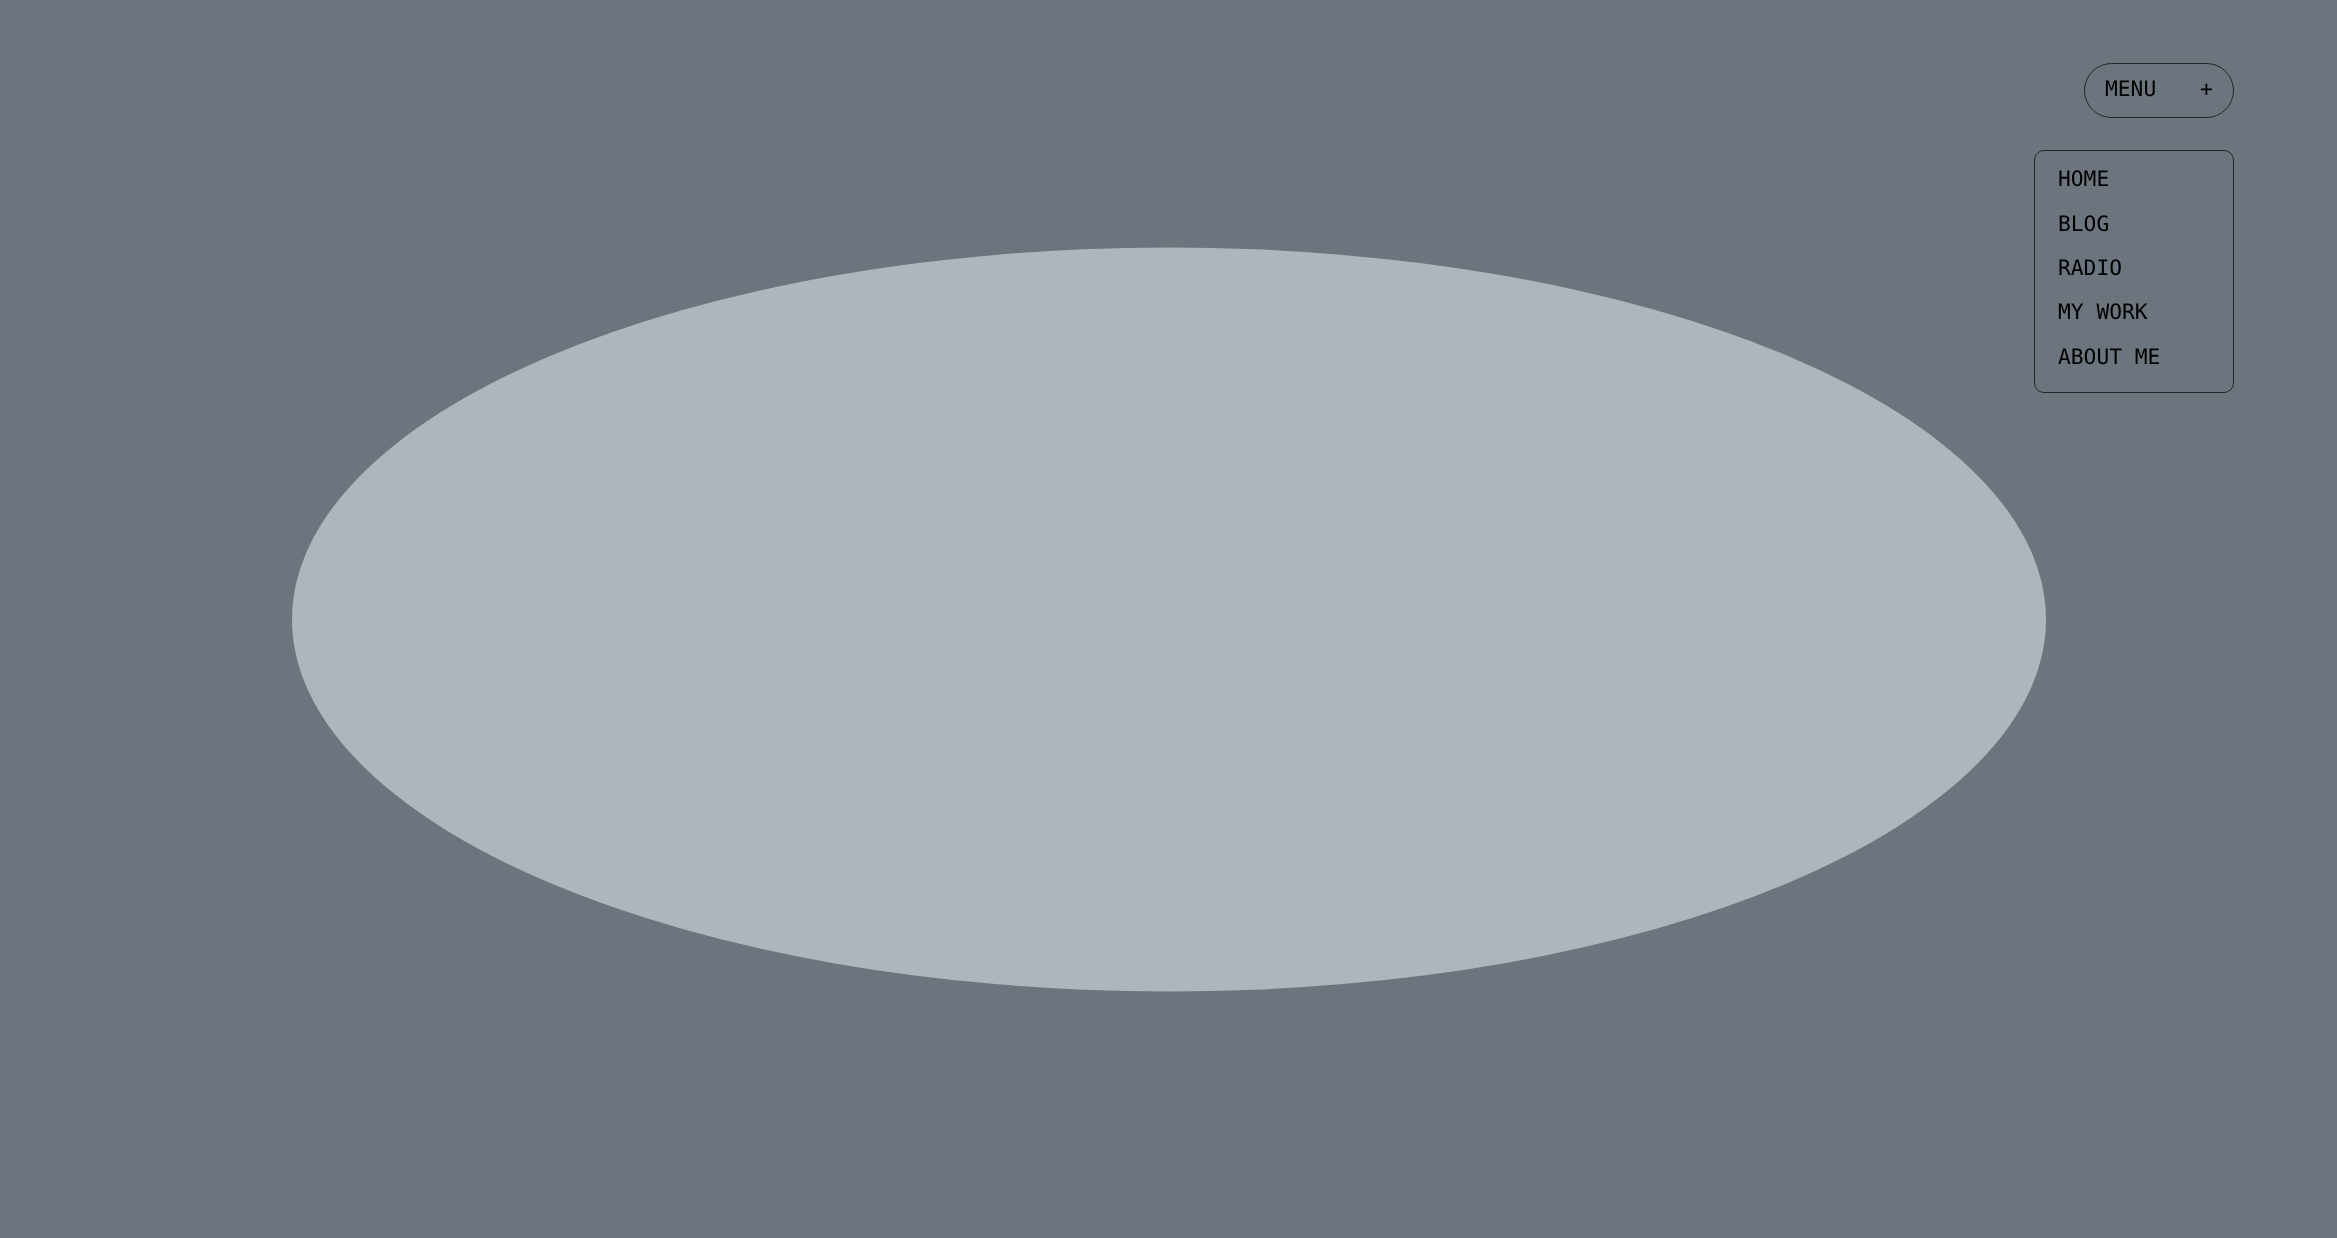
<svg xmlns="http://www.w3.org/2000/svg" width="2337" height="1238">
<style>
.a{font:21.25px DejaVu Sans Mono;fill:#000}
</style>
<rect width="100%" height="100%" fill="#6c757d"/>
<rect fill="none" stroke="#212529" x="2084.5" y="63.5" width="149" height="54" rx="27"/>
<ellipse fill="#adb5bd" cx="1169" cy="619.5" rx="877" ry="372"/>
<rect fill="none" stroke="#212529" x="2034.5" y="150.5" width="199" height="242" rx="9.5"/>
<text class="a" x="2105" y="96">MENU</text>
<text class="a" x="2200" y="96">+</text>
<text class="a" x="2058" y="186">HOME</text>
<text class="a" x="2058" y="231">BLOG</text>
<text class="a" x="2058" y="275">RADIO</text>
<text class="a" x="2058" y="319">MY WORK</text>
<text class="a" x="2058" y="364">ABOUT ME</text>
</svg>
